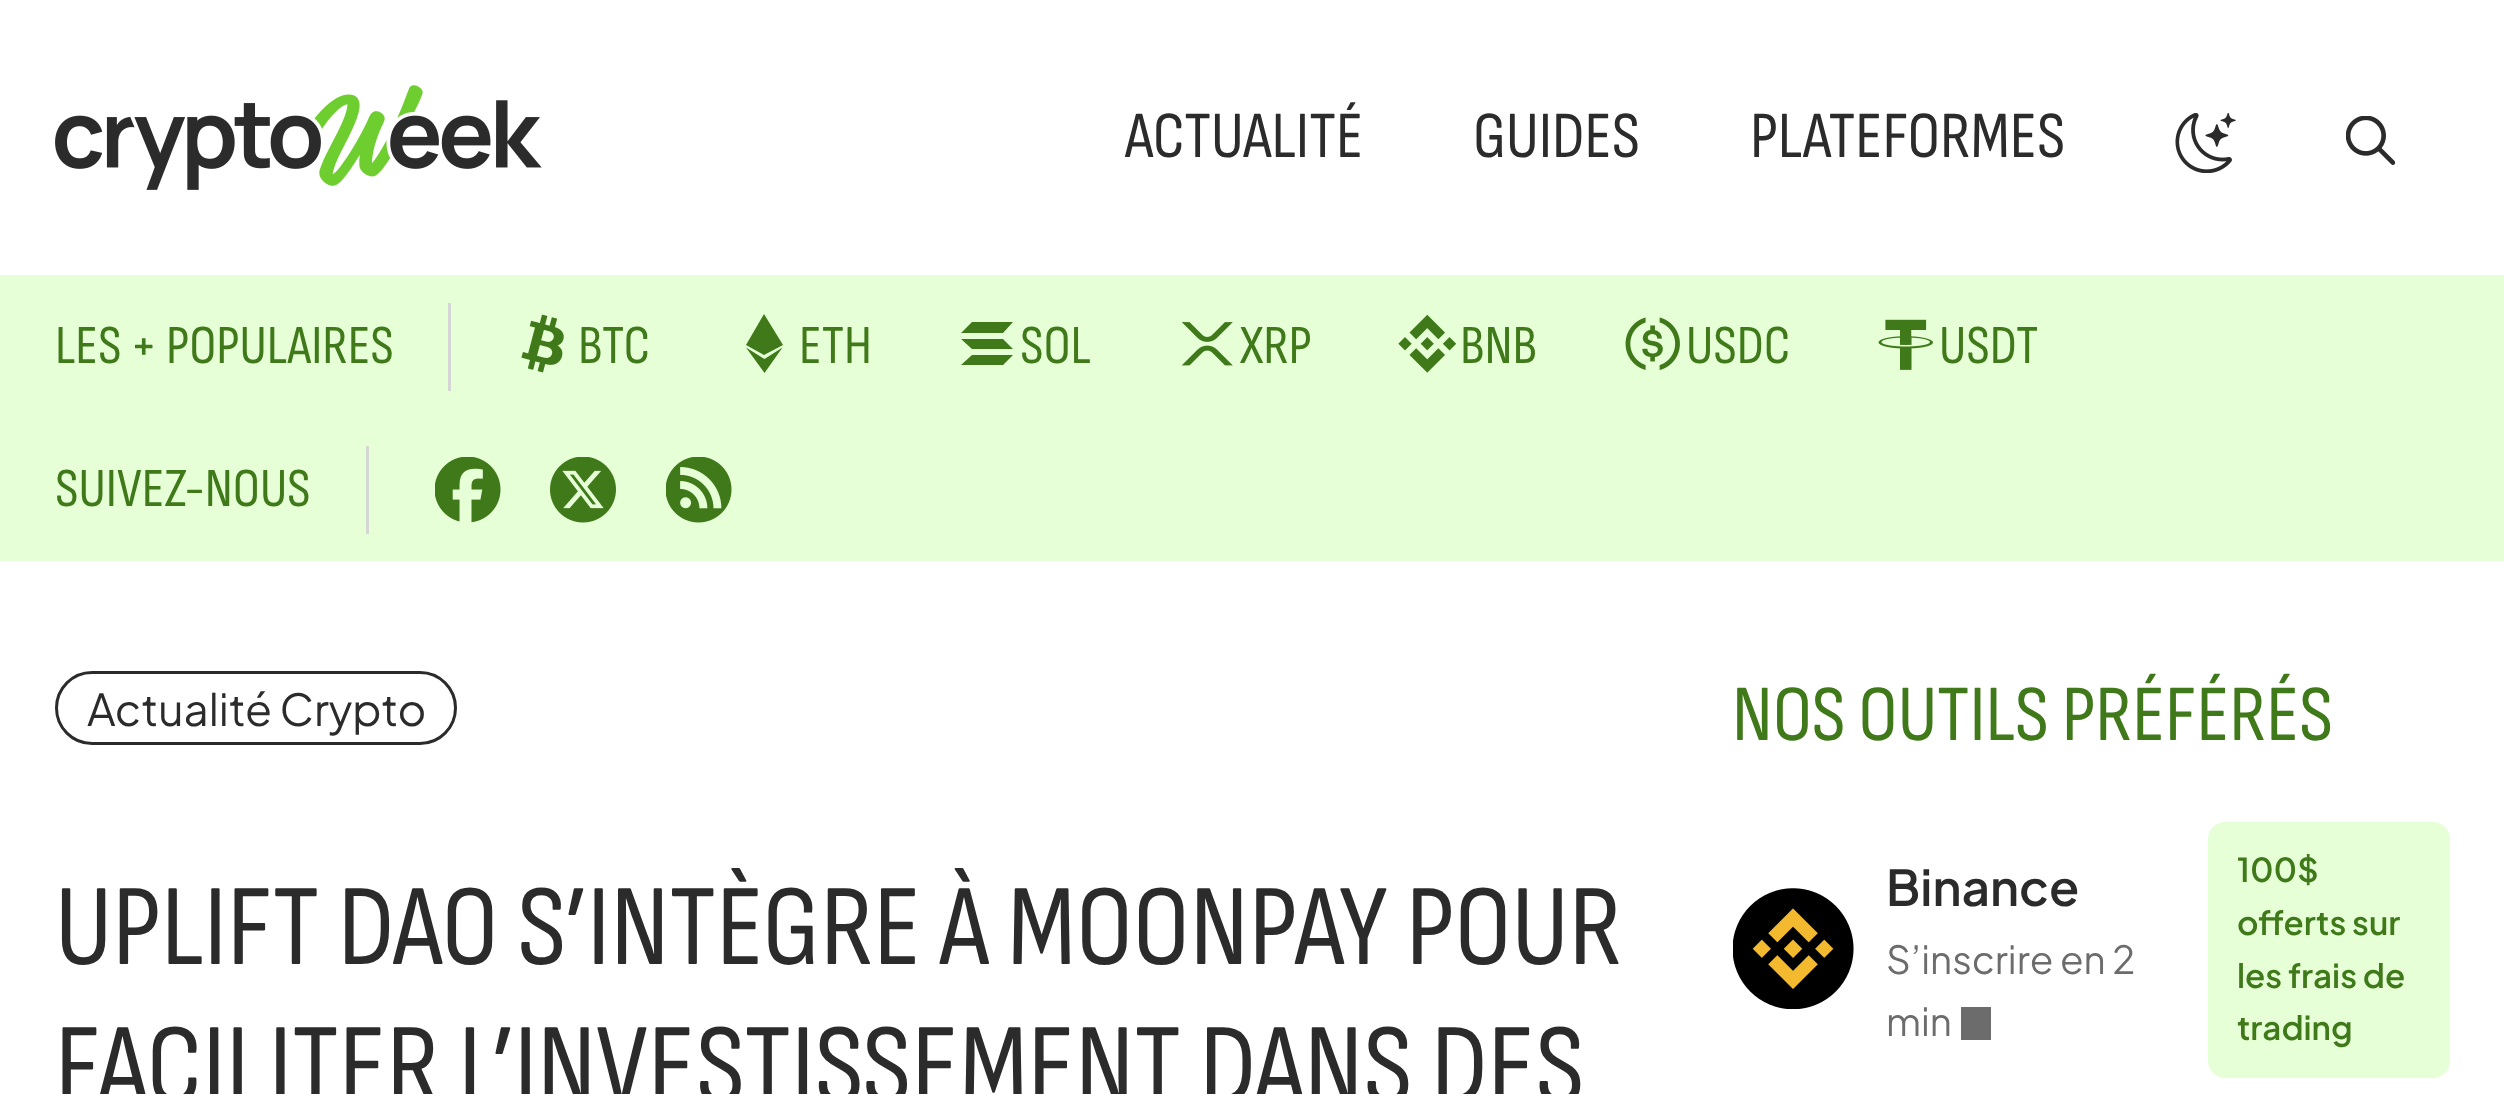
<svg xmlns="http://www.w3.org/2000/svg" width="2504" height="1094">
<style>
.a{font:66px Sofia Sans Condensed;fill:#2b2b2b}
.b{font:55px Sofia Sans Condensed;fill:#3f7919}
.c{font:44px Plus Jakarta Sans;fill:#2b2b2b}
.d{font:115.5px Sofia Sans Condensed;fill:#2b2b2b}
.e{font:79.75px Sofia Sans Condensed;fill:#3f7919}
.f{font:600 49.5px Plus Jakarta Sans;fill:#2b2b2b}
.g{font:38.5px Plus Jakarta Sans;fill:#6c6c6c}
.h{font:600 33px Plus Jakarta Sans;fill:#3f7919}
</style>
<rect width="100%" height="100%" fill="#fff"/>
<image href="1.png" x="55" y="85" width="487" height="105"/>
<image href="2.png" x="2175" y="113" width="61" height="60"/>
<image href="3.png" x="2346" y="116" width="49" height="49"/>
<path fill="#e6ffd6" d="M0 275h2504v286H0z"/>
<path fill="#d6d6d6" d="M448 303h3v88H448z"/>
<image href="4.png" x="521" y="314" width="43" height="59"/>
<path fill="#3f7919" d="M746 345l18-31l19 31l-19 10z"/>
<path fill="#3f7919" d="M764.5 359l18-11.5l-18 25.5l-18.5-25.5z"/>
<path fill="#3f7919" d="M1003 333h-42l11-11h41zm0 32h-42l11-10h41m-41-6h41l-10-10h-42"/>
<image href="5.png" x="1181" y="322" width="52" height="44"/>
<image href="6.png" x="1398" y="314" width="59" height="59"/>
<image href="7.png" x="1625" y="317" width="55" height="53"/>
<image href="8.png" x="1878" y="319" width="55" height="51"/>
<path fill="#d6d6d6" d="M366 446h3v88H366z"/>
<image href="9.png" x="435" y="457" width="66" height="66"/>
<image href="10.png" x="550" y="457" width="66" height="66"/>
<image href="11.png" x="666" y="457" width="66" height="66"/>
<rect fill="none" stroke="#2b2b2b" stroke-width="3" x="56.5" y="672.5" width="399" height="71" rx="35.5"/>
<image href="12.png" x="1733" y="888" width="121" height="121"/>
<path fill="#6c6c6c" d="M1961 1007h30v33H1961z"/>
<rect fill="#e6ffd6" x="2208" y="822" width="242" height="256" rx="17"/>
<text class="a" x="1125" y="157">ACTUALITÉ</text>
<text class="a" x="1473" y="157">GUIDES</text>
<text class="a" x="1750" y="157">PLATEFORMES</text>
<text class="b" x="55" y="363">LES + POPULAIRES</text>
<text class="b" x="578" y="363">BTC</text>
<text class="b" x="799" y="363">ETH</text>
<text class="b" x="1020" y="363">SOL</text>
<text class="b" x="1240" y="363">XRP</text>
<text class="b" x="1460" y="363">BNB</text>
<text class="b" x="1686" y="363">USDC</text>
<text class="b" x="1939" y="363">USDT</text>
<text class="b" x="55" y="506">SUIVEZ-NOUS</text>
<text class="c" x="87" y="726">Actualité Crypto</text>
<text class="d" x="55" y="964">UPLIFT DAO S’INTÈGRE À MOONPAY POUR</text>
<text class="d" x="55" y="1103">FACILITER L’INVESTISSEMENT DANS DES</text>
<text class="e" x="1732" y="740">NOS OUTILS PRÉFÉRÉS</text>
<text class="f" x="1886" y="906">Binance</text>
<text class="g" x="1886" y="974">S’inscrire en 2</text>
<text class="g" x="1886" y="1036">min</text>
<text class="h" x="2237" y="882">100$</text>
<text class="h" x="2237" y="935">offerts sur</text>
<text class="h" x="2237" y="988">les frais de</text>
<text class="h" x="2237" y="1040">trading</text>
</svg>
